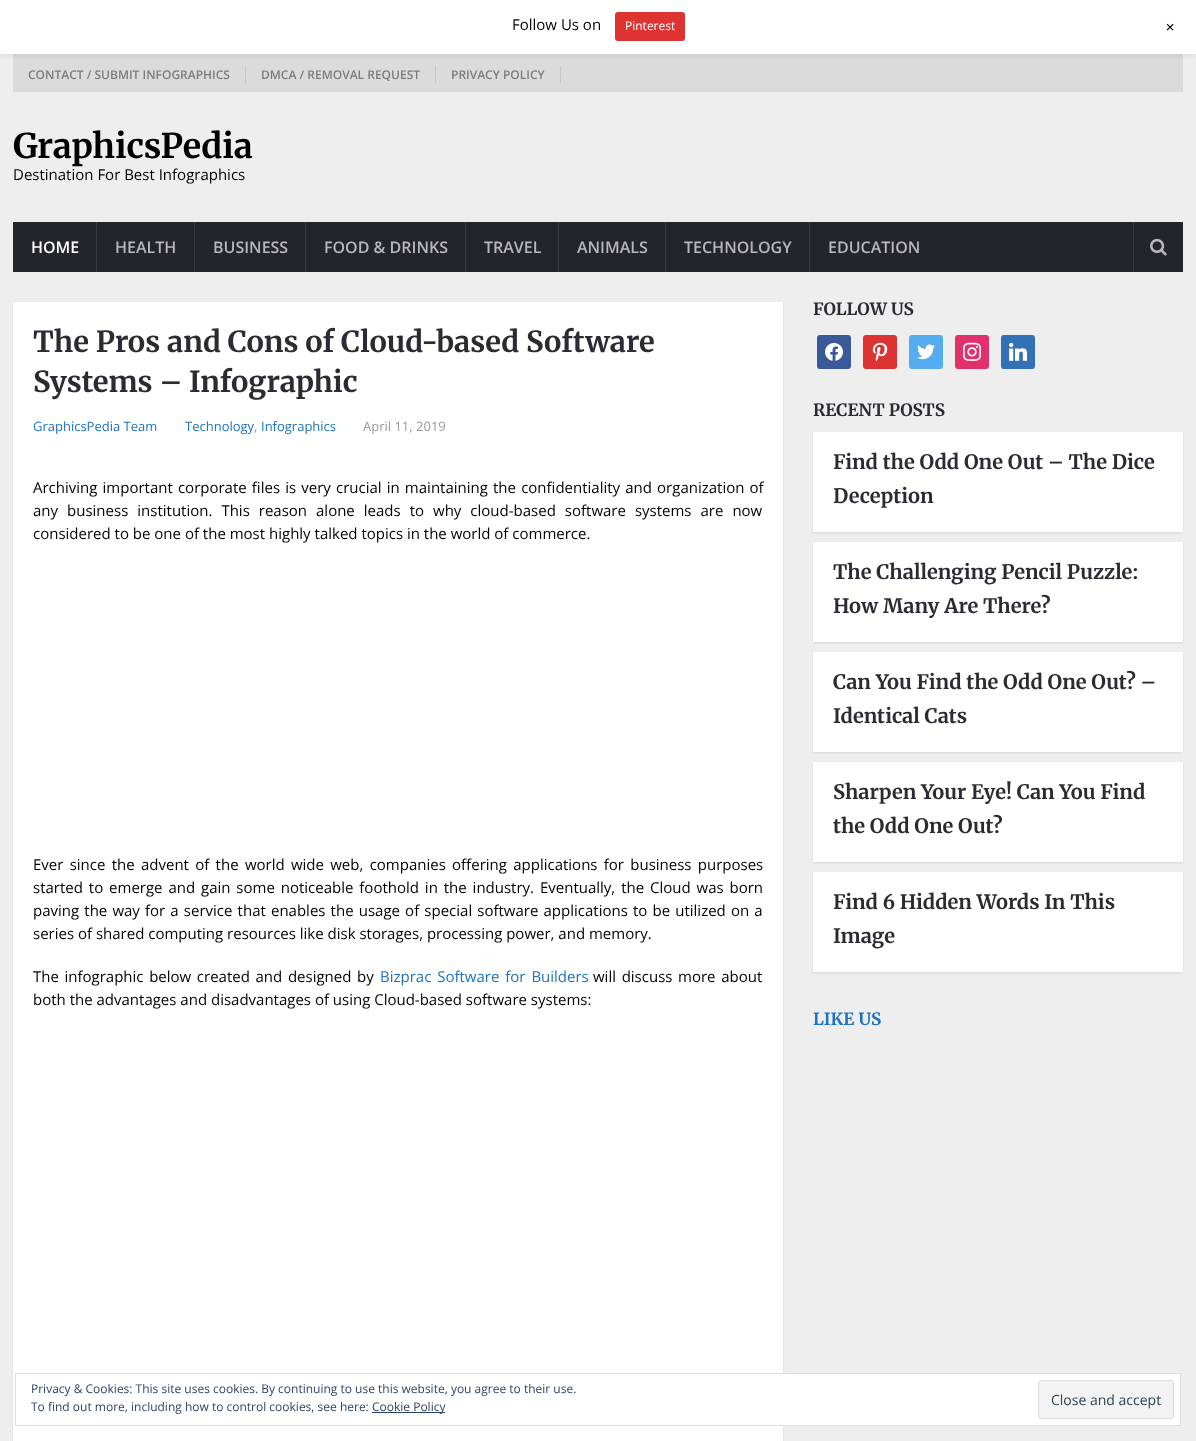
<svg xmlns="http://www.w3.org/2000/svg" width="1196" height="1441">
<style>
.a{font:15px Open Sans;fill:#000}
.b{font:12px Open Sans;fill:#fff}
.c{font:18px Open Sans;fill:#000}
.d{font:600 12px Open Sans;fill:#7c7c7c}
.e{font:300 34px Merriweather;fill:#000}
.f{font:600 16px Open Sans;fill:#fff}
.g{font:600 16px Open Sans;fill:#b8b8ba}
.h{font:300 29px Merriweather;fill:#2b2c33}
.i{font:13px Open Sans;fill:#1e73be}
.j{font:13px Open Sans;fill:#9b9b9b}
.k{font:15px Open Sans;fill:#1e73be}
.l{font:300 17px Merriweather;fill:#2b2c33}
.m{font:300 20px Merriweather;fill:#2b2c33}
.n{font:300 17px Merriweather;fill:#1e73be}
.o{font:12px Open Sans;fill:#2e4467}
.p{font:14px Open Sans;fill:#2e4453}
</style>
<rect width="100%" height="100%" fill="#eee"/>
<path fill="#dbdbdb" d="M13 54h1170v38H13z"/>
<path fill="#0000000d" filter="blur(2px)" d="M0 3h1196v54H0z"/>
<path fill="#fff" d="M0 0h1196v54H0z"/>
<rect fill="#d33" x="615" y="12" width="70" height="29" rx="3"/>
<path fill="#c6c6c6" d="M245 66h1v17H245z"/>
<path fill="#c6c6c6" d="M435 66h1v17H435z"/>
<path fill="#c6c6c6" d="M560 66h1v17H560z"/>
<path fill="#24252b" d="M13 222h1170v50H13z"/>
<path fill="#3a3b40" d="M96 222h1v50H96z"/>
<path fill="#3a3b40" d="M194 222h1v50H194z"/>
<path fill="#3a3b40" d="M305 222h1v50H305z"/>
<path fill="#3a3b40" d="M465 222h1v50H465z"/>
<path fill="#3a3b40" d="M558 222h1v50H558z"/>
<path fill="#3a3b40" d="M665 222h1v50H665z"/>
<path fill="#3a3b40" d="M809 222h1v50H809z"/>
<path fill="#3a3b40" d="M1133 222h1v50H1133z"/>
<image href="1.png" x="1150" y="238" width="17" height="18"/>
<path fill="#0000001a" filter="blur(1px)" d="M13 303h770v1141H13z"/>
<path fill="#fff" d="M13 302h770v1139H13z"/>
<rect fill="#3b5998" x="817" y="335" width="34" height="34" rx="3"/>
<image href="2.png" x="825" y="343" width="18" height="18"/>
<rect fill="#d33" x="863" y="335" width="34" height="34" rx="3"/>
<image href="3.png" x="872" y="342" width="16" height="19"/>
<rect fill="#55acee" x="909" y="335" width="34" height="34" rx="3"/>
<image href="4.png" x="917" y="344" width="18" height="16"/>
<rect fill="#e1306c" x="955" y="335" width="34" height="34" rx="3"/>
<image href="5.png" x="963" y="342" width="18" height="19"/>
<rect fill="#3371b7" x="1001" y="335" width="34" height="34" rx="3"/>
<image href="6.png" x="1009" y="342" width="19" height="19"/>
<path fill="#0000001a" filter="blur(1px)" d="M813 433h370v100H813z"/>
<path fill="#fff" d="M813 432h370v100H813z"/>
<path fill="#0000001a" filter="blur(1px)" d="M813 543h370v100H813z"/>
<path fill="#fff" d="M813 542h370v100H813z"/>
<path fill="#0000001a" filter="blur(1px)" d="M813 653h370v100H813z"/>
<path fill="#fff" d="M813 652h370v100H813z"/>
<path fill="#0000001a" filter="blur(1px)" d="M813 763h370v100H813z"/>
<path fill="#fff" d="M813 762h370v100H813z"/>
<path fill="#0000001a" filter="blur(1px)" d="M813 873h370v100H813z"/>
<path fill="#fff" d="M813 872h370v100H813z"/>
<path fill="#fff" d="M783 1374h397v51H783z"/>
<path fill="none" stroke="#dedede" d="M15.5 1373.5h1165v52H15.5z"/>
<path fill="#2e4467" d="M372 1412h73v1H372z"/>
<rect fill="#f3f3f3" stroke="#dedede" x="1038.5" y="1380.5" width="135" height="38" rx="2.5"/>
<text class="a" x="512" y="30">Follow Us on</text>
<text class="b" x="625" y="30">Pinterest</text>
<text class="c" x="1162" y="28" transform="rotate(45 1162 28)">+</text>
<text class="d" x="28" y="79">CONTACT / SUBMIT INFOGRAPHICS</text>
<text class="d" x="261" y="79">DMCA / REMOVAL REQUEST</text>
<text class="d" x="451" y="79">PRIVACY POLICY</text>
<text class="e" x="13" y="158">GraphicsPedia</text>
<text class="a" x="13" y="180">Destination For Best Infographics</text>
<text class="f" x="31" y="253">HOME</text>
<text class="g" x="115" y="253">HEALTH</text>
<text class="g" x="213" y="253">BUSINESS</text>
<text class="g" x="324" y="253">FOOD &amp; DRINKS</text>
<text class="g" x="484" y="253">TRAVEL</text>
<text class="g" x="577" y="253">ANIMALS</text>
<text class="g" x="684" y="253">TECHNOLOGY</text>
<text class="g" x="828" y="253">EDUCATION</text>
<text class="h" x="33" y="352">The Pros and Cons of Cloud-based Software</text>
<text class="h" x="33" y="392">Systems – Infographic</text>
<text class="i" x="33" y="431">GraphicsPedia Team</text>
<text class="i" x="185" y="431">Technology</text>
<text class="j" x="254" y="431">,</text>
<text class="i" x="261" y="431">Infographics</text>
<text class="j" x="363" y="431">April 11, 2019</text>
<text class="a" x="33" y="493" word-spacing="1.25">Archiving important corporate files is very crucial in maintaining the confidentiality and organization of</text>
<text class="a" x="33" y="516" word-spacing="5.1">any business institution. This reason alone leads to why cloud-based software systems are now</text>
<text class="a" x="33" y="539">considered to be one of the most highly talked topics in the world of commerce.</text>
<text class="a" x="33" y="870" word-spacing="2.4">Ever since the advent of the world wide web, companies offering applications for business purposes</text>
<text class="a" x="33" y="893" word-spacing="2">started to emerge and gain some noticeable foothold in the industry. Eventually, the Cloud was born</text>
<text class="a" x="33" y="916" word-spacing="1.25">paving the way for a service that enables the usage of special software applications to be utilized on a</text>
<text class="a" x="33" y="939">series of shared computing resources like disk storages, processing power, and memory.</text>
<text class="a" x="33" y="982" word-spacing="1.75">The infographic below created and designed by</text>
<text class="k" x="380" y="982" word-spacing="2">Bizprac Software for Builders</text>
<text class="a" x="593" y="982" word-spacing="1.75">will discuss more about</text>
<text class="a" x="33" y="1005">both the advantages and disadvantages of using Cloud-based software systems:</text>
<text class="l" x="813" y="315">FOLLOW US</text>
<text class="l" x="813" y="416">RECENT POSTS</text>
<text class="m" x="833" y="469">Find the Odd One Out – The Dice</text>
<text class="m" x="833" y="503">Deception</text>
<text class="m" x="833" y="579">The Challenging Pencil Puzzle:</text>
<text class="m" x="833" y="613">How Many Are There?</text>
<text class="m" x="833" y="689">Can You Find the Odd One Out? –</text>
<text class="m" x="833" y="723">Identical Cats</text>
<text class="m" x="833" y="799">Sharpen Your Eye! Can You Find</text>
<text class="m" x="833" y="833">the Odd One Out?</text>
<text class="m" x="833" y="909">Find 6 Hidden Words In This</text>
<text class="m" x="833" y="943">Image</text>
<text class="n" x="813" y="1025">LIKE US</text>
<text class="o" x="31" y="1393">Privacy &amp; Cookies: This site uses cookies. By continuing to use this website, you agree to their use.</text>
<text class="o" x="31" y="1411">To find out more, including how to control cookies, see here:</text>
<text class="o" x="372" y="1411">Cookie Policy</text>
<text class="p" x="1051" y="1405">Close and accept</text>
</svg>
